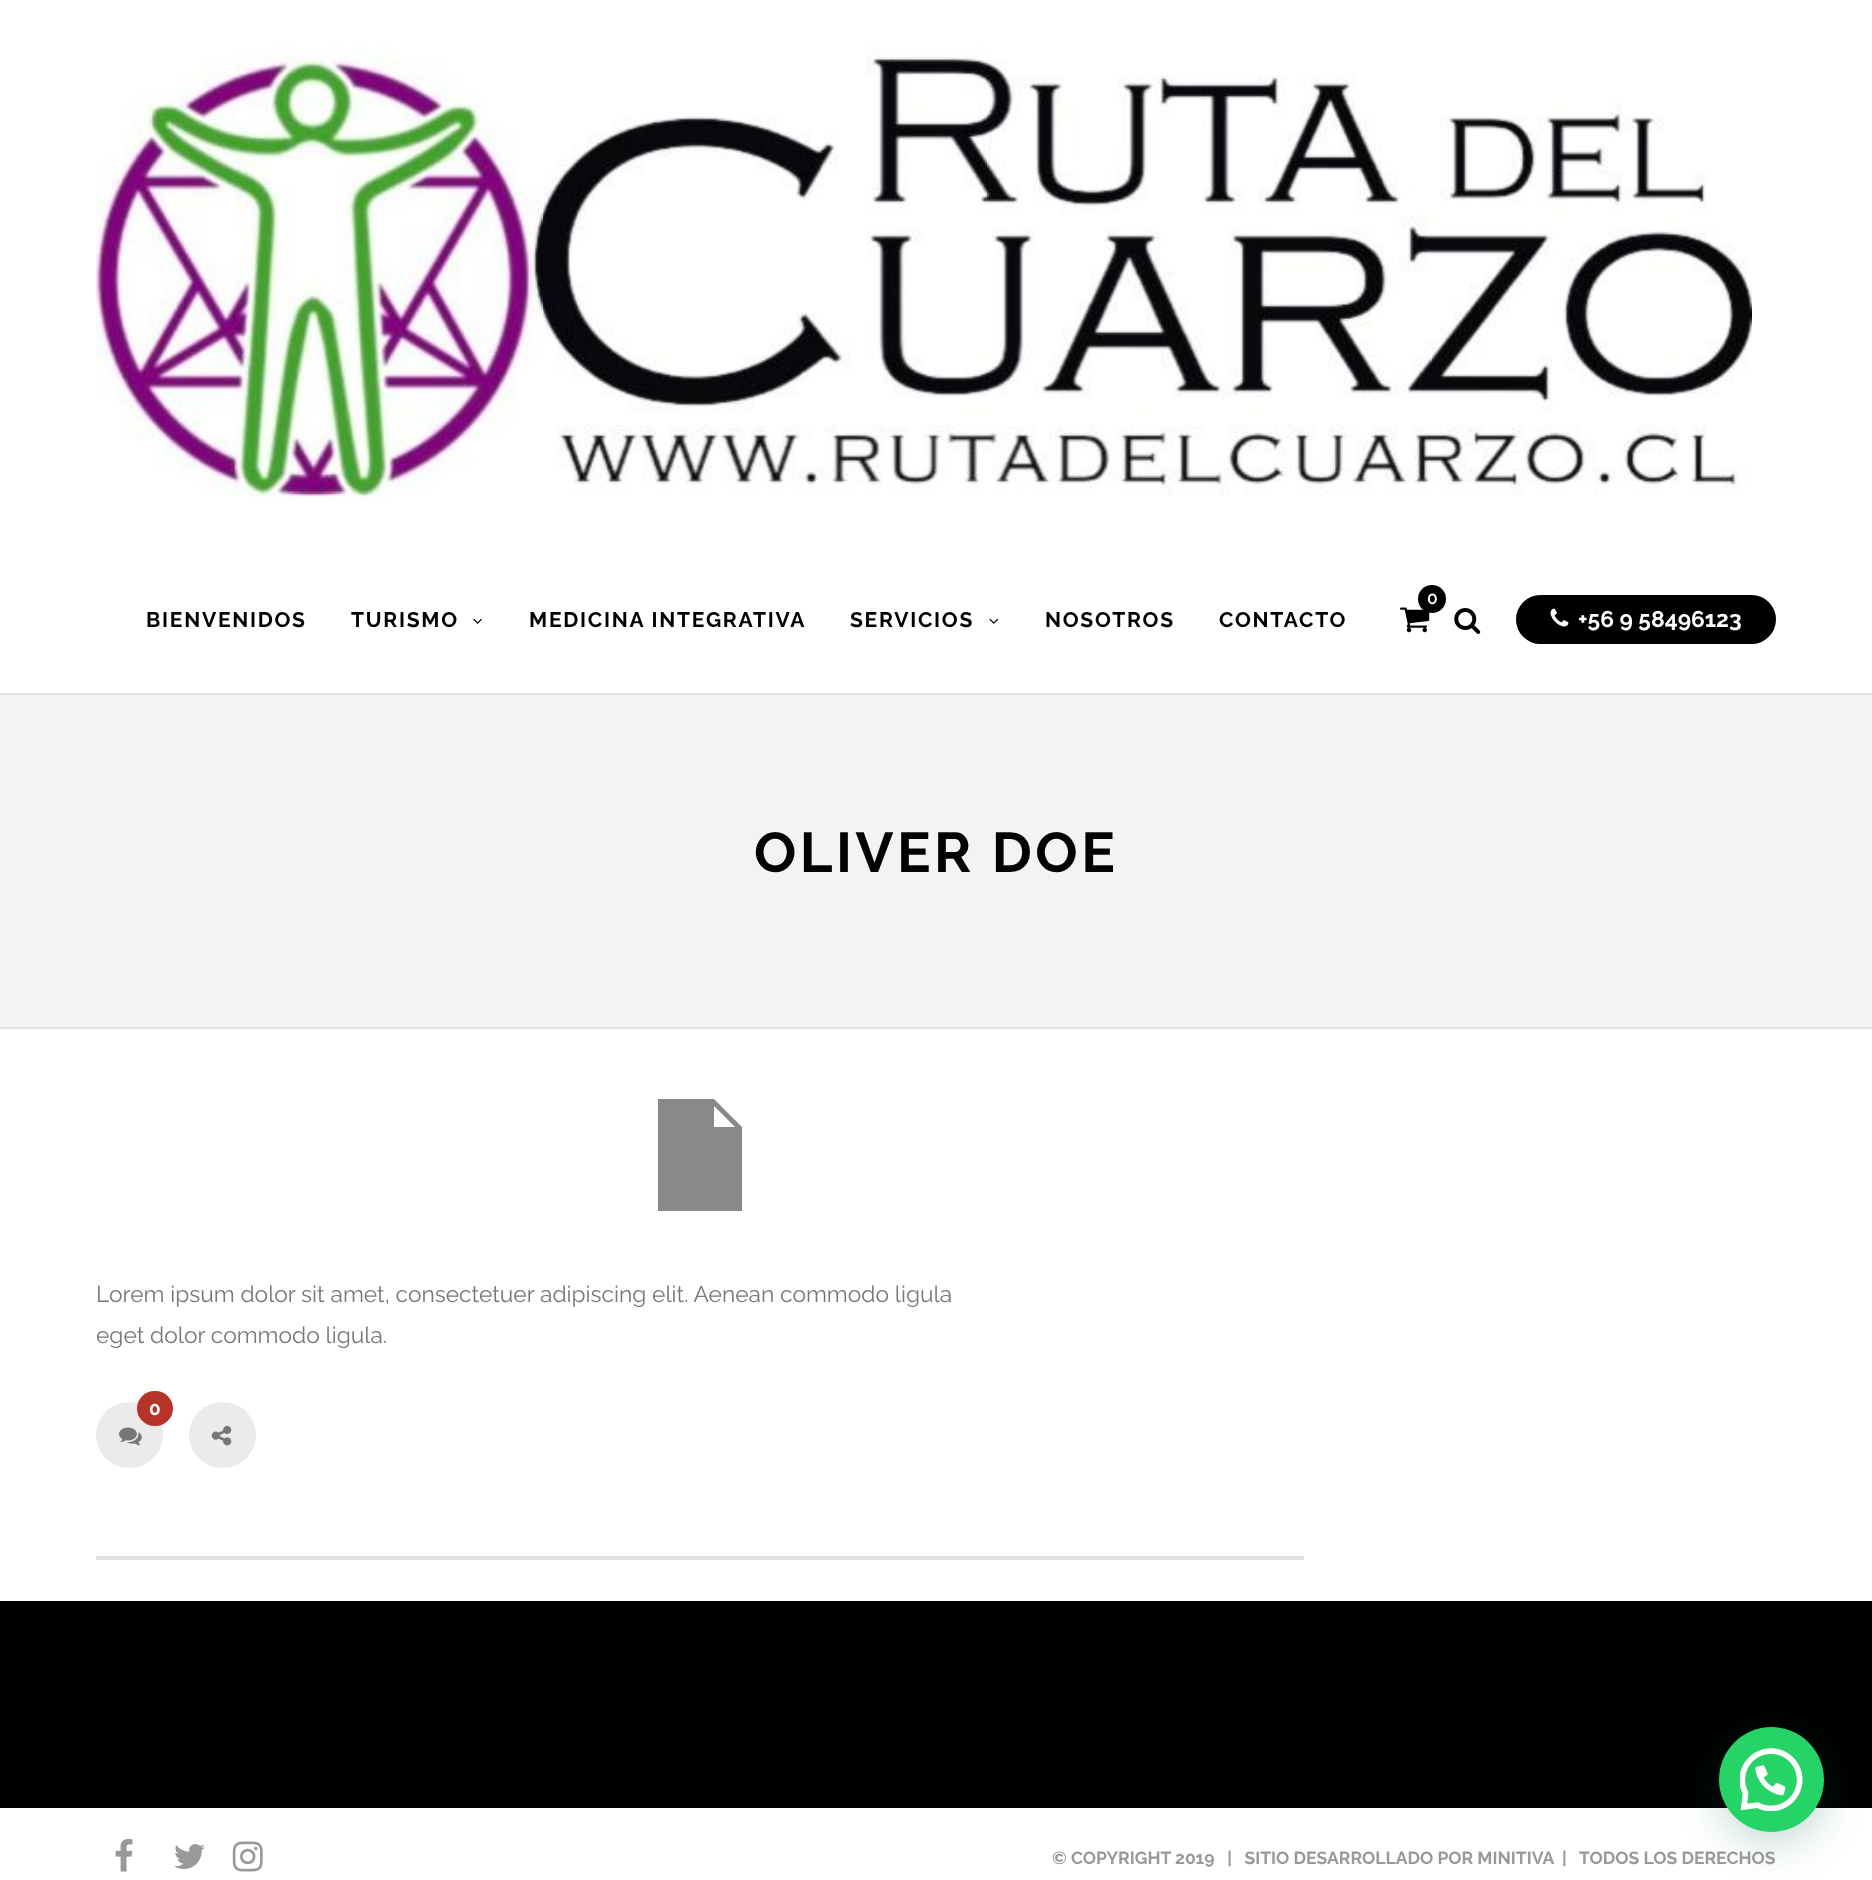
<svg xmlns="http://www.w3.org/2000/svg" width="1872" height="1880">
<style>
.a{font:600 17.5px Raleway;fill:#fff}
.b{font:bold 21px Raleway;letter-spacing:1.75px;fill:#020202}
.c{font:bold 22.75px Raleway;fill:#fff}
.d{font:bold 56px Raleway;letter-spacing:3.5px;fill:#020202}
.e{font:22.75px Raleway;fill:#777}
.f{font:bold 19px Raleway;fill:#fff}
.g{font:bold 17.5px Raleway;fill:#999}
</style>
<rect width="100%" height="100%" fill="#fff"/>
<path fill="#e1e1e1" d="M0 693h1872v2H0z"/>
<image href="1.png" x="96" y="47" width="1656" height="451"/>
<image href="2.png" x="1400" y="607" width="30" height="26"/>
<circle fill="#000" cx="1432" cy="599" r="14"/>
<image href="3.png" x="473" y="618" width="9" height="6"/>
<image href="4.png" x="989" y="618" width="10" height="6"/>
<image href="5.png" x="1454" y="608" width="27" height="26"/>
<rect fill="#000" x="1516" y="595" width="260" height="49" rx="24.5"/>
<image href="6.png" x="1550" y="608" width="19" height="19"/>
<path fill="#f3f3f3" d="M0 695h1872v332H0z"/>
<path fill="#e1e1e1" d="M0 1027h1872v2H0z"/>
<path fill="#898989" d="M714 1099h-56v112h84v-84zm0 28v-21l21 21z"/>
<rect fill="#ebebeb" x="96" y="1402" width="67" height="66" rx="33"/>
<rect fill="#b63327" x="137" y="1391" width="36" height="35" rx="17.5"/>
<image href="7.png" x="119" y="1427" width="23" height="19"/>
<rect fill="#ebebeb" x="189" y="1402" width="67" height="66" rx="33"/>
<image href="8.png" x="211" y="1425" width="21" height="21"/>
<path fill="#e1e1e1" d="M96 1556h1208v4H96z"/>
<path fill="#000" d="M0 1601h1872v207H0z"/>
<rect fill="#075e543d" filter="blur(21px)" x="1720" y="1738" width="105" height="105" rx="52.5"/>
<circle fill="#25d366" cx="1771.5" cy="1779.5" r="52.5"/>
<image href="9.png" x="1740" y="1748" width="63" height="63"/>
<image href="10.png" x="115" y="1839" width="18" height="33"/>
<image href="11.png" x="174" y="1844" width="31" height="25"/>
<image href="12.png" x="232" y="1841" width="31" height="31"/>
<text class="a" x="1427" y="604">0</text>
<text class="b" x="146" y="627">BIENVENIDOS</text>
<text class="b" x="351" y="627">TURISMO</text>
<text class="b" x="529" y="627">MEDICINA INTEGRATIVA</text>
<text class="b" x="850" y="627">SERVICIOS</text>
<text class="b" x="1045" y="627">NOSOTROS</text>
<text class="b" x="1219" y="627">CONTACTO</text>
<text class="c" x="1578" y="627">+56 9 58496123</text>
<text class="d" x="754" y="872">OLIVER DOE</text>
<text class="e" x="96" y="1302">Lorem ipsum dolor sit amet, consectetuer adipiscing elit. Aenean commodo ligula</text>
<text class="e" x="96" y="1343">eget dolor commodo ligula.</text>
<text class="f" x="149" y="1415">0</text>
<text class="g" xml:space="preserve" x="1052" y="1864">© COPYRIGHT 2019   |   SITIO DESARROLLADO POR MINITIVA  |   TODOS LOS DERECHOS</text>
</svg>
